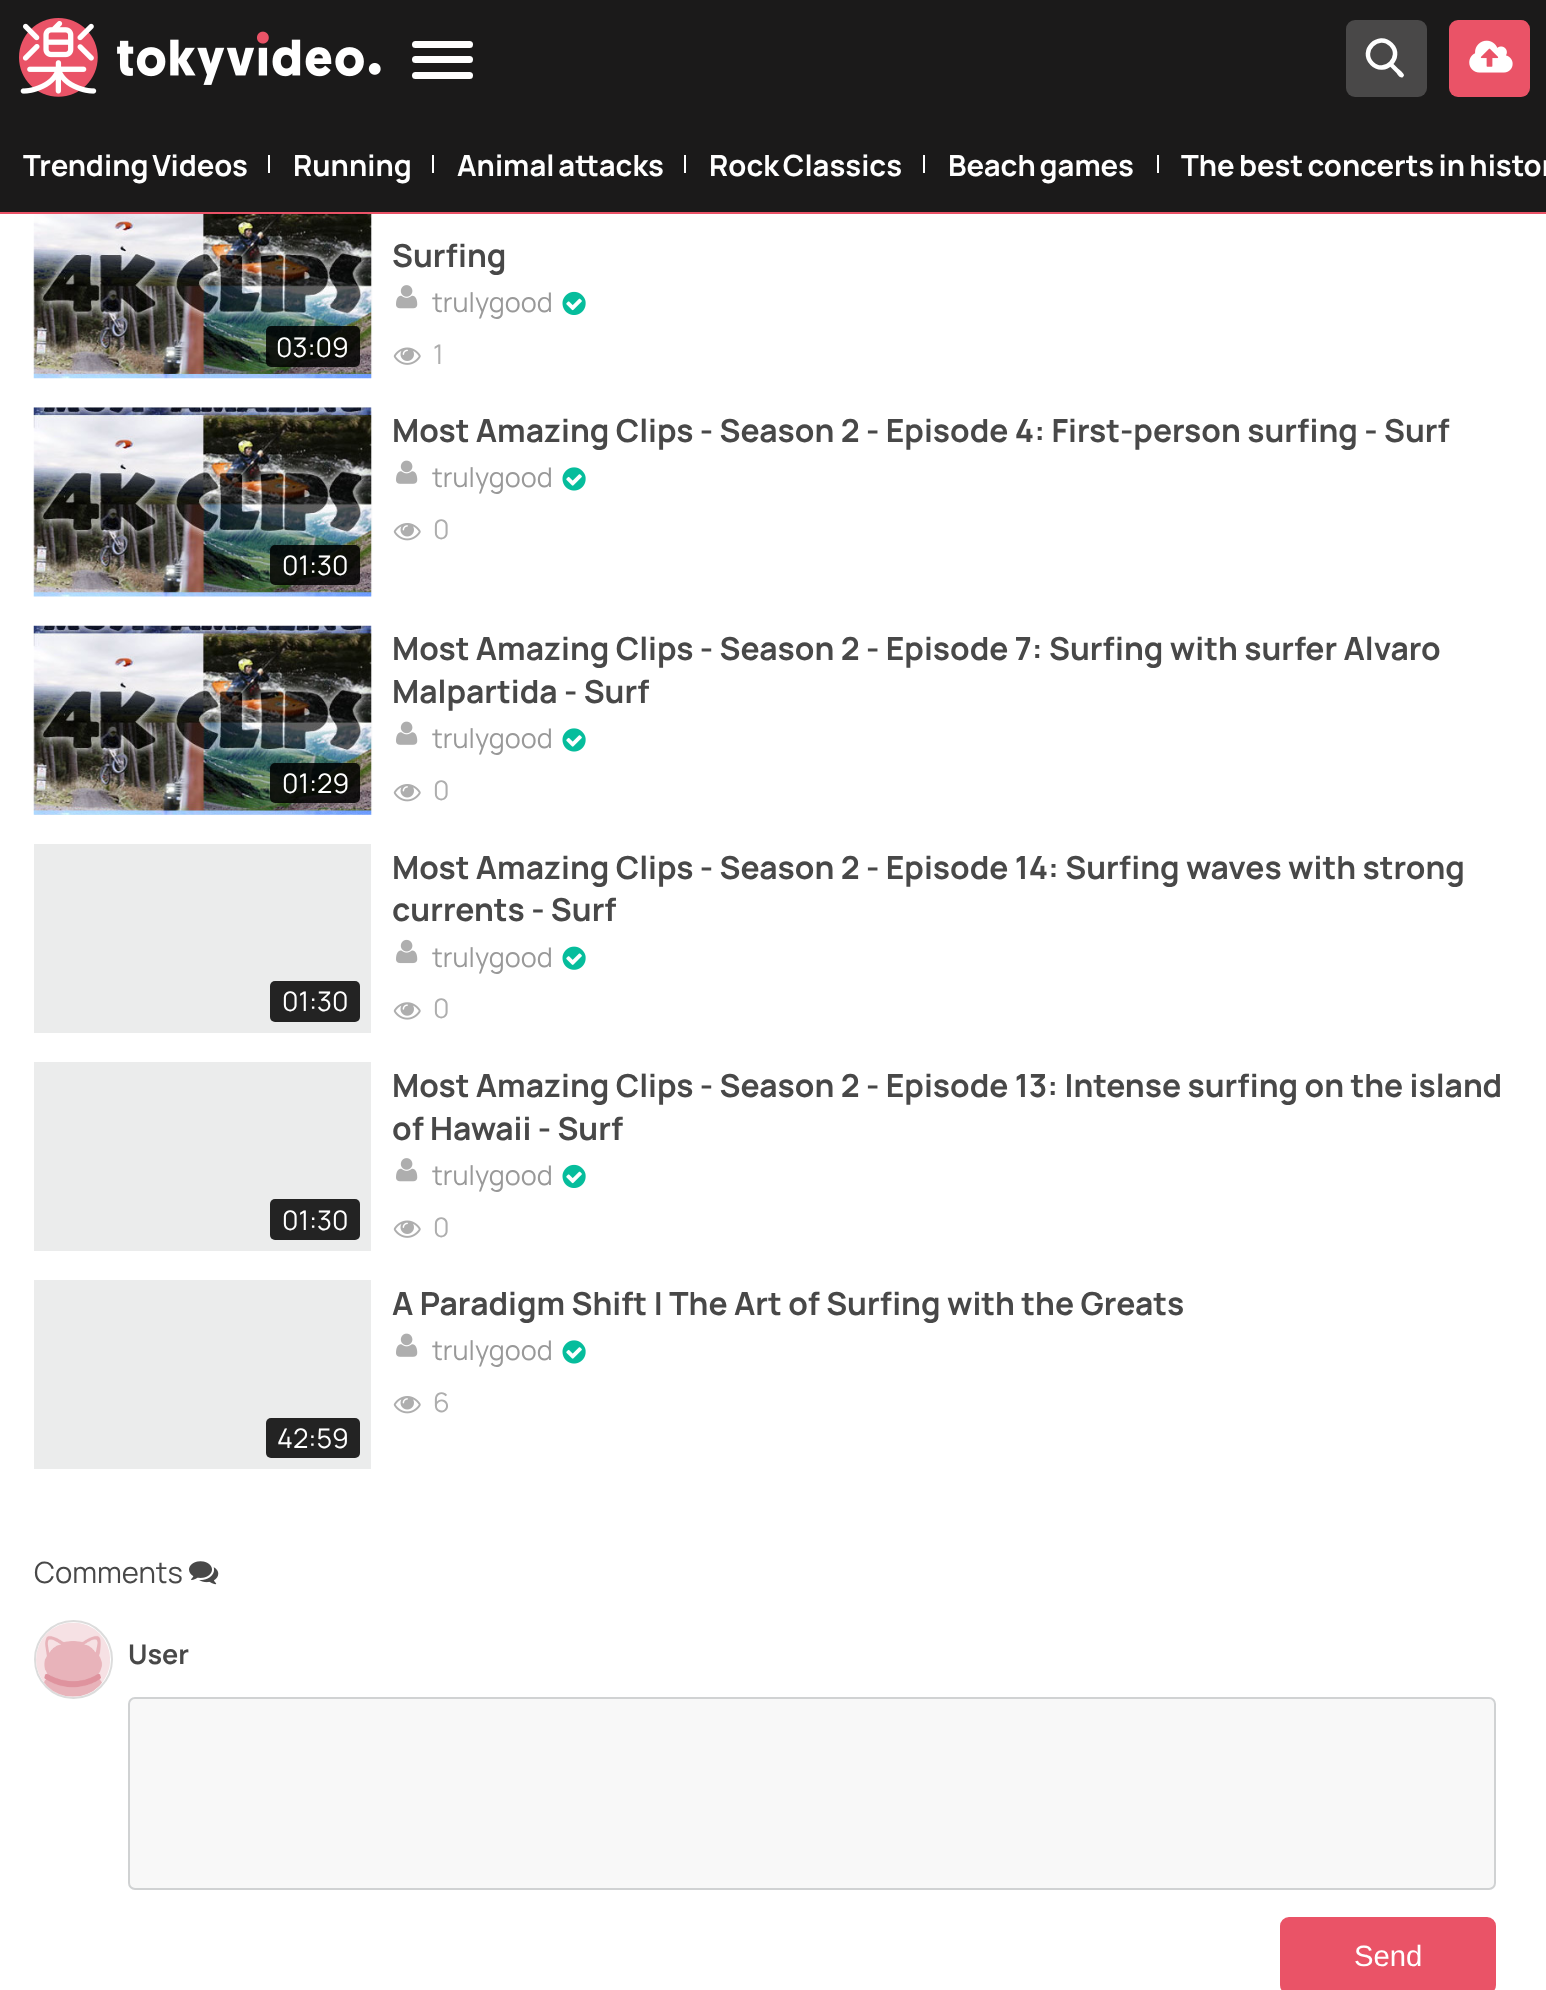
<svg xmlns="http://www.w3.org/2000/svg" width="1546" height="1990">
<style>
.a{font:bold 29.25px Manrope;fill:#fff}
.b{font:27px Manrope;fill:#fff}
.c{font:bold 31.8px Manrope;fill:#484848}
.d{font:27px Manrope;fill:#999}
.e{font:27px Manrope;fill:#aeaeae}
.f{font:29.25px Manrope;fill:#484848}
.g{font:bold 27px Manrope;fill:#484848}
.h{font:29.25px Liberation Sans;fill:#fff}
</style>
<defs>
<clipPath id="clip1"><path d="M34 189h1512v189H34z"/></clipPath>
<clipPath id="clip2"><path d="M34 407h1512v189H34z"/></clipPath>
<clipPath id="clip3"><path d="M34 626h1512v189H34z"/></clipPath>
</defs>
<rect width="100%" height="100%" fill="#fff"/>
<g clip-path="url(#clip1)">
<path fill="#8787872e" filter="blur(1px)" d="M34 194h337v189H34z"/>
</g>
<path fill="#1b1a1a" d="M0 0h1546v212H0z"/>
<image href="1.png" x="19" y="18" width="362" height="79"/>
<rect fill="#fff" x="412" y="56" width="61" height="7" rx="3.5"/>
<rect fill="#fff" x="412" y="41" width="61" height="7" rx="3.5"/>
<rect fill="#fff" x="412" y="72" width="61" height="7" rx="3.5"/>
<rect fill="#494848" x="1346" y="20" width="81" height="77" rx="9"/>
<path fill="#fff" d="M1392 62.5l5.5 5.5c1.5 1.5 7 5.5 6.5 7.5l-1 1.5c-2.5 2-5.5-2.5-6.5-4l-8-8c-1-2 2-4 3.5-2.5z"/>
<path fill="none" stroke="#fff" stroke-width="4.5" d="M1391 44.5c12.5 12.5-6.5 31.5-19 19c-12.5-12.5 6.5-31.5 19-19z"/>
<rect fill="#ea5367" x="1449" y="20" width="81" height="77" rx="9"/>
<image href="2.png" x="1469" y="40" width="44" height="33"/>
<path fill="#ea5367" d="M0 212h1546v2H0z"/>
<path fill="#fff" d="M268 155h2v18H268z"/>
<path fill="#fff" d="M432 155h2v18H432z"/>
<path fill="#fff" d="M684 155h2v18H684z"/>
<path fill="#fff" d="M923 155h2v18H923z"/>
<path fill="#fff" d="M1157 155h2v18H1157z"/>
<image href="3.png" x="33" y="214" width="339" height="165"/>
<rect fill="#000000d9" x="266" y="326" width="94" height="41" rx="5"/>
<image href="4.png" x="396" y="285" width="22" height="24"/>
<image href="5.png" x="562" y="291" width="24" height="24"/>
<image href="6.png" x="393" y="347" width="28" height="18"/>
<image href="7.png" x="396" y="460" width="22" height="24"/>
<image href="8.png" x="562" y="467" width="24" height="24"/>
<image href="9.png" x="393" y="523" width="28" height="18"/>
<g clip-path="url(#clip2)">
<path fill="#8787872e" filter="blur(1px)" d="M34 412h337v189H34z"/>
</g>
<path fill="#ebecec" d="M34 407h337v1H34z"/>
<image href="10.png" x="33" y="407" width="339" height="190"/>
<rect fill="#000000d9" x="270" y="545" width="90" height="40" rx="5"/>
<g clip-path="url(#clip3)">
<path fill="#8787872e" filter="blur(1px)" d="M34 630h337v189H34z"/>
</g>
<image href="11.png" x="33" y="625" width="339" height="190"/>
<rect fill="#000000d9" x="270" y="763" width="90" height="40" rx="5"/>
<image href="7.png" x="396" y="721" width="22" height="24"/>
<image href="8.png" x="562" y="728" width="24" height="24"/>
<image href="9.png" x="393" y="784" width="28" height="18"/>
<path fill="#ebecec" d="M34 844h337v189H34z"/>
<rect fill="#232323" x="270" y="981" width="90" height="41" rx="5"/>
<image href="12.png" x="396" y="939" width="22" height="25"/>
<image href="13.png" x="562" y="946" width="24" height="24"/>
<image href="14.png" x="393" y="1002" width="28" height="18"/>
<path fill="#ebecec" d="M34 1062h337v189H34z"/>
<rect fill="#232323" x="270" y="1199" width="90" height="41" rx="5"/>
<image href="4.png" x="396" y="1158" width="22" height="24"/>
<image href="5.png" x="562" y="1164" width="24" height="24"/>
<image href="6.png" x="393" y="1220" width="28" height="18"/>
<image href="15.png" x="396" y="1333" width="22" height="24"/>
<image href="8.png" x="562" y="1340" width="24" height="24"/>
<image href="16.png" x="393" y="1396" width="28" height="18"/>
<path fill="#ebecec" d="M34 1280h337v189H34z"/>
<rect fill="#232323" x="266" y="1418" width="94" height="40" rx="5"/>
<image href="17.png" x="189" y="1561" width="30" height="24"/>
<circle fill="none" stroke="#dcdcdc" stroke-width="2" cx="73.5" cy="1659.5" r="38.5"/>
<image href="18.png" x="36" y="1622" width="74" height="75"/>
<rect fill="#f8f8f8" stroke="#d0d2d3" stroke-width="2" x="129" y="1698" width="1366" height="191" rx="6"/>
<rect fill="#ea5367" stroke="#ea5367" stroke-width="2" x="1281" y="1918" width="214" height="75" rx="8"/>
<text class="a" x="23" y="176" word-spacing="-2">Trending Videos</text>
<text class="a" x="293" y="176">Running</text>
<text class="a" x="457" y="176" word-spacing="-2">Animal attacks</text>
<text class="a" x="709" y="176" word-spacing="-2">Rock Classics</text>
<text class="a" x="948" y="176" word-spacing="-2">Beach games</text>
<text class="a" x="1181" y="176" word-spacing="-1.5">The best concerts in histor</text>
<text class="b" x="276" y="357">03:09</text>
<text class="c" x="392" y="267">Surfing</text>
<text class="d" x="432" y="312">trulygood</text>
<text class="e" x="433" y="364">1</text>
<text class="c" x="392" y="442">Most Amazing Clips - Season 2 - Episode 4: First-person surfing - Surf</text>
<text class="d" x="432" y="487">trulygood</text>
<text class="e" x="433" y="539">0</text>
<text class="b" x="282" y="575">01:30</text>
<text class="b" x="282" y="793">01:29</text>
<text class="c" x="392" y="660">Most Amazing Clips - Season 2 - Episode 7: Surfing with surfer Alvaro</text>
<text class="c" x="392" y="703">Malpartida - Surf</text>
<text class="d" x="432" y="748">trulygood</text>
<text class="e" x="433" y="800">0</text>
<text class="b" x="282" y="1011">01:30</text>
<text class="c" x="392" y="879">Most Amazing Clips - Season 2 - Episode 14: Surfing waves with strong</text>
<text class="c" x="392" y="921">currents - Surf</text>
<text class="d" x="432" y="967">trulygood</text>
<text class="e" x="433" y="1018">0</text>
<text class="b" x="282" y="1230">01:30</text>
<text class="c" x="392" y="1097">Most Amazing Clips - Season 2 - Episode 13: Intense surfing on the island</text>
<text class="c" x="392" y="1140">of Hawaii - Surf</text>
<text class="d" x="432" y="1185">trulygood</text>
<text class="e" x="433" y="1237">0</text>
<text class="c" x="392" y="1315">A Paradigm Shift | The Art of Surfing with the Greats</text>
<text class="d" x="432" y="1360">trulygood</text>
<text class="e" x="433" y="1412">6</text>
<text class="b" x="277" y="1448">42:59</text>
<text class="f" x="34" y="1583">Comments</text>
<text class="g" x="128" y="1664">User</text>
<text class="h" x="1354" y="1966">Send</text>
</svg>
